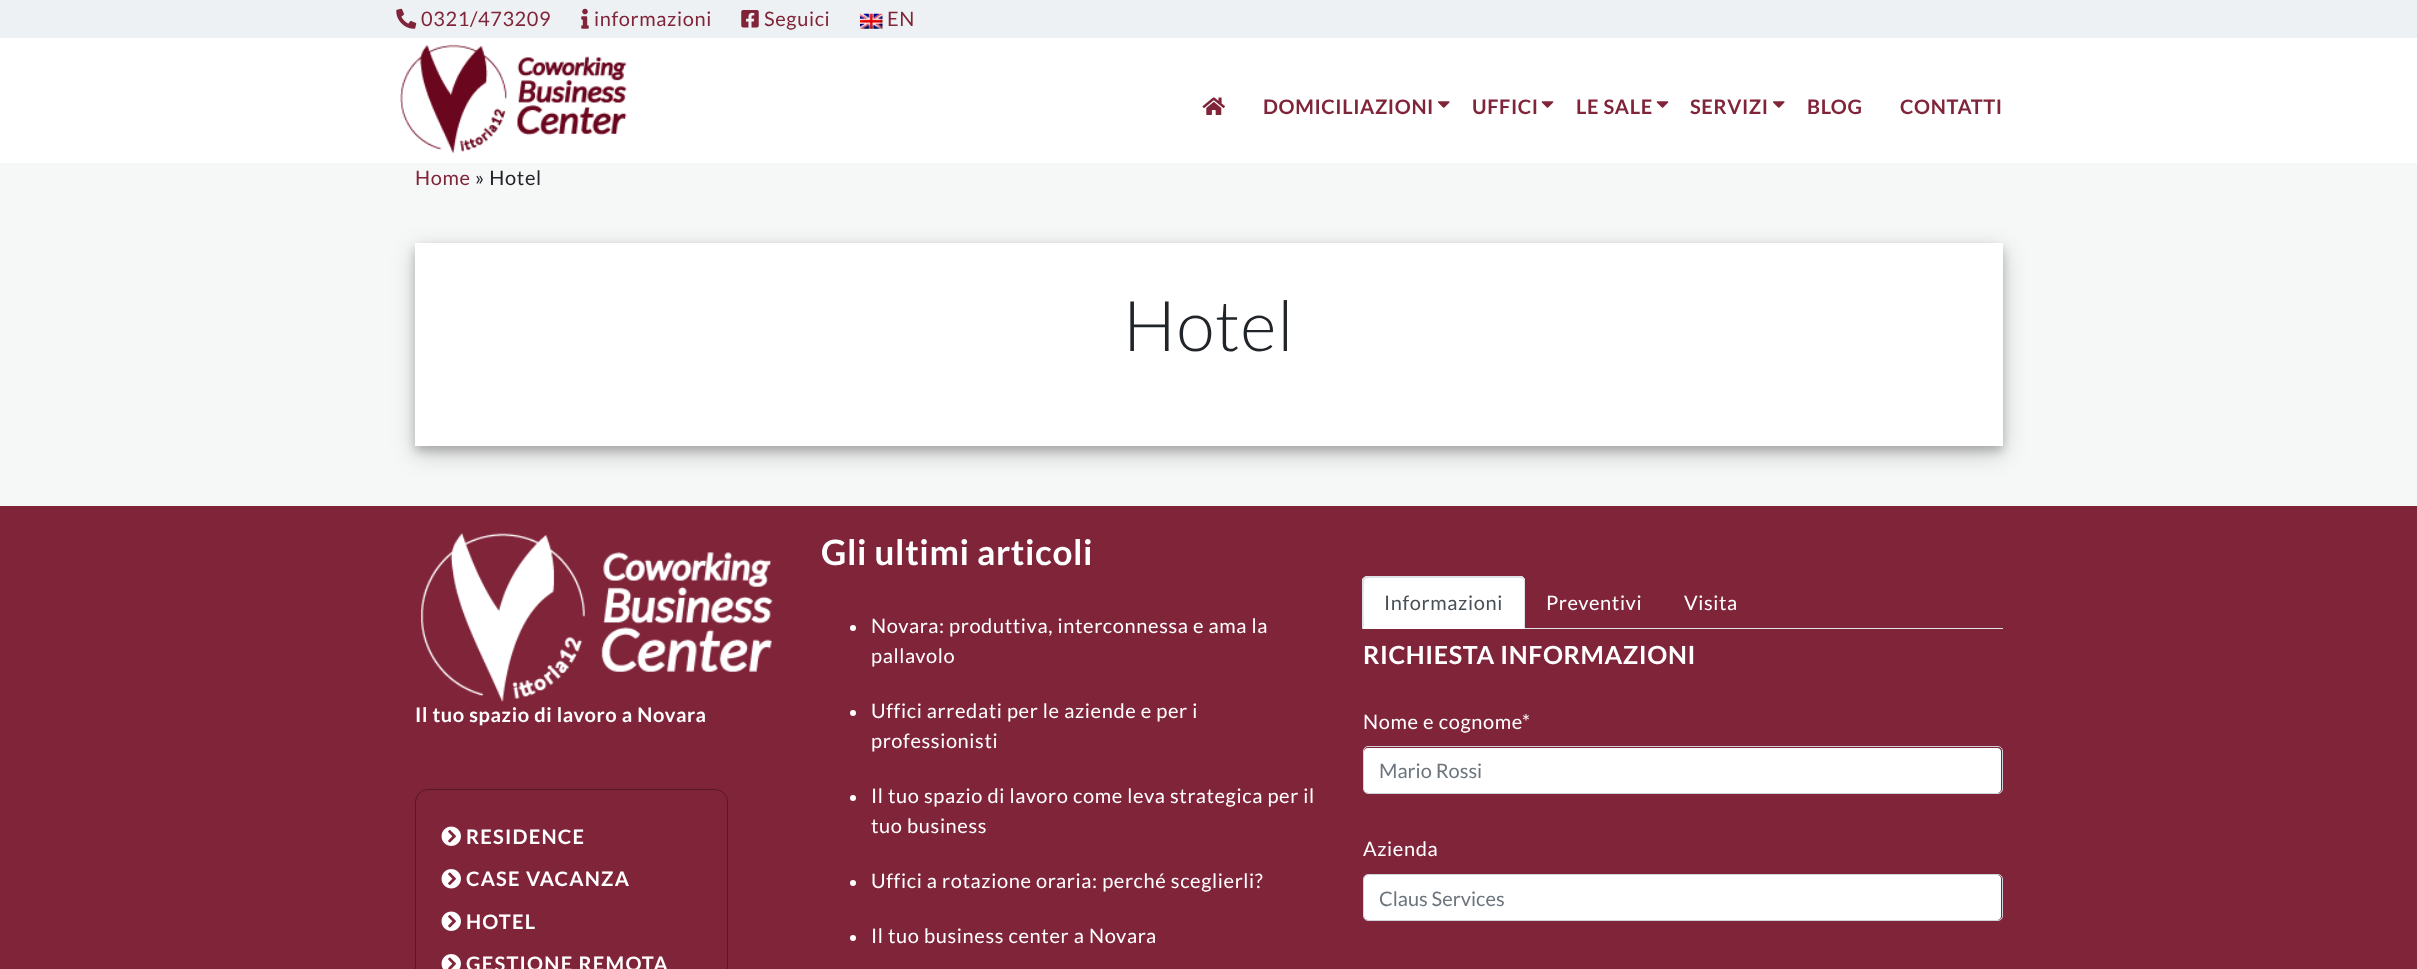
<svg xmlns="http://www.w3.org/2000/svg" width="2417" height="969">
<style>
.a{font:20px Lato;letter-spacing:0.62px;fill:#80243a}
.b{font:bold 20px Lato;letter-spacing:0.62px;fill:#80243a}
.c{font:20px Lato;letter-spacing:0.62px;fill:#212529}
.d{font:300 70px Lato;letter-spacing:0.62px;fill:#212529}
.e{font:bold 20px Lato;letter-spacing:0.62px;fill:#fff}
.f{font:bold 20px Lato;letter-spacing:1.25px;fill:#fff}
.g{font:bold 35px Lato;letter-spacing:0.62px;fill:#fff}
.h{font:20px Lato;letter-spacing:0.62px;fill:#fff}
.i{font:20px Lato;letter-spacing:0.62px;fill:#495057}
.j{font:bold 25px Lato;letter-spacing:0.62px;fill:#fff}
.k{font:20px Lato;fill:#6c757d}
</style>
<rect width="100%" height="100%" fill="#f6f7f7"/>
<path fill="#fff" d="M0 38h2417v125H0z"/>
<path fill="#eef1f3" d="M0 0h2417v38H0z"/>
<image href="1.png" x="396" y="8" width="21" height="21"/>
<image href="2.png" x="581" y="8" width="8" height="21"/>
<image href="3.png" x="741" y="10" width="18" height="18"/>
<image href="4.png" x="860" y="13" width="23" height="16"/>
<image href="5.png" x="400" y="44" width="227" height="110"/>
<image href="6.png" x="1202" y="97" width="23" height="18"/>
<image href="7.png" x="1438" y="101" width="12" height="7"/>
<image href="8.png" x="1541" y="101" width="13" height="7"/>
<image href="8.png" x="1656" y="101" width="13" height="7"/>
<image href="7.png" x="1773" y="101" width="12" height="7"/>
<path fill="#00000030" filter="blur(12.5px)" d="M415 250h1588v204H415z"/>
<path fill="#00000033" filter="blur(5px)" d="M415 248h1588v203H415z"/>
<path fill="#fff" d="M415 243h1588v203H415z"/>
<path fill="#80243a" d="M0 506h2417v463H0z"/>
<image href="9.png" x="421" y="533" width="352" height="169"/>
<rect fill="none" stroke="#571827" x="415.5" y="789.5" width="312" height="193" rx="12.5"/>
<image href="10.png" x="441" y="826" width="20" height="20"/>
<image href="11.png" x="441" y="869" width="20" height="20"/>
<image href="10.png" x="441" y="911" width="20" height="20"/>
<image href="12.png" x="441" y="954" width="20" height="15"/>
<circle fill="#fff" cx="853" cy="628" r="3"/>
<circle fill="#fff" cx="853" cy="713" r="3"/>
<circle fill="#fff" cx="853" cy="798" r="3"/>
<circle fill="#fff" cx="853" cy="883" r="3"/>
<circle fill="#fff" cx="853" cy="938" r="3"/>
<path fill="#dee2e6" d="M1525 628h478v1H1525z"/>
<path fill="#fff" d="M1368 576h152c3 0 5 2 5 5v48h-162v-48c0-3 2-5 5-5z"/>
<path fill="#dee2e6" d="M1368 578l-3 1l-1-2l2-1h156l2 2l-1 1l-3-1z"/>
<path fill="#dee2e6" d="M1525 629v-48c0-1 0-3-1-3l-1 1l1 1v48z"/>
<path fill="#fff" d="M1525 629l-1-1h-160v-1l-2 2z"/>
<path fill="#dee2e6" d="M1362 629v-50l2-2l1 2c-2 1-1 43-1 48z"/>
<rect fill="#fff" x="1364" y="748" width="637" height="45" rx="4"/>
<rect fill="none" stroke="#ced4da" x="1363.5" y="746.5" width="639" height="47" rx="4.5"/>
<rect fill="#fff" x="1364" y="875" width="637" height="45" rx="4"/>
<rect fill="none" stroke="#ced4da" x="1363.5" y="874.5" width="639" height="46" rx="4.5"/>
<text class="a" x="421" y="26">0321/473209</text>
<text class="a" x="594" y="26">informazioni</text>
<text class="a" x="764" y="26">Seguici</text>
<text class="a" x="887" y="26">EN</text>
<text class="b" x="1263" y="114">DOMICILIAZIONI</text>
<text class="b" x="1472" y="114">UFFICI</text>
<text class="b" x="1576" y="114">LE SALE</text>
<text class="b" x="1690" y="114">SERVIZI</text>
<text class="b" x="1807" y="114">BLOG</text>
<text class="b" x="1900" y="114">CONTATTI</text>
<text class="a" x="415" y="185">Home</text>
<text class="c" x="475" y="185">» Hotel</text>
<text class="d" x="1123" y="351">Hotel</text>
<text class="e" x="415" y="722">Il tuo spazio di lavoro a Novara</text>
<text class="f" x="466" y="844">RESIDENCE</text>
<text class="f" x="466" y="886">CASE VACANZA</text>
<text class="f" x="466" y="929">HOTEL</text>
<text class="f" x="466" y="971">GESTIONE REMOTA</text>
<text class="g" x="821" y="565">Gli ultimi articoli</text>
<text class="h" x="871" y="633">Novara: produttiva, interconnessa e ama la</text>
<text class="h" x="871" y="663">pallavolo</text>
<text class="h" x="871" y="718">Uffici arredati per le aziende e per i</text>
<text class="h" x="871" y="748">professionisti</text>
<text class="h" x="871" y="803">Il tuo spazio di lavoro come leva strategica per il</text>
<text class="h" x="871" y="833">tuo business</text>
<text class="h" x="871" y="888">Uffici a rotazione oraria: perché sceglierli?</text>
<text class="h" x="871" y="943">Il tuo business center a Novara</text>
<text class="i" x="1384" y="610">Informazioni</text>
<text class="h" x="1546" y="610">Preventivi</text>
<text class="h" x="1684" y="610">Visita</text>
<text class="j" x="1363" y="664">RICHIESTA INFORMAZIONI</text>
<text class="h" x="1363" y="729">Nome e cognome*</text>
<text class="k" x="1379" y="778">Mario Rossi</text>
<text class="h" x="1363" y="856">Azienda</text>
<text class="k" x="1379" y="906">Claus Services</text>
</svg>
